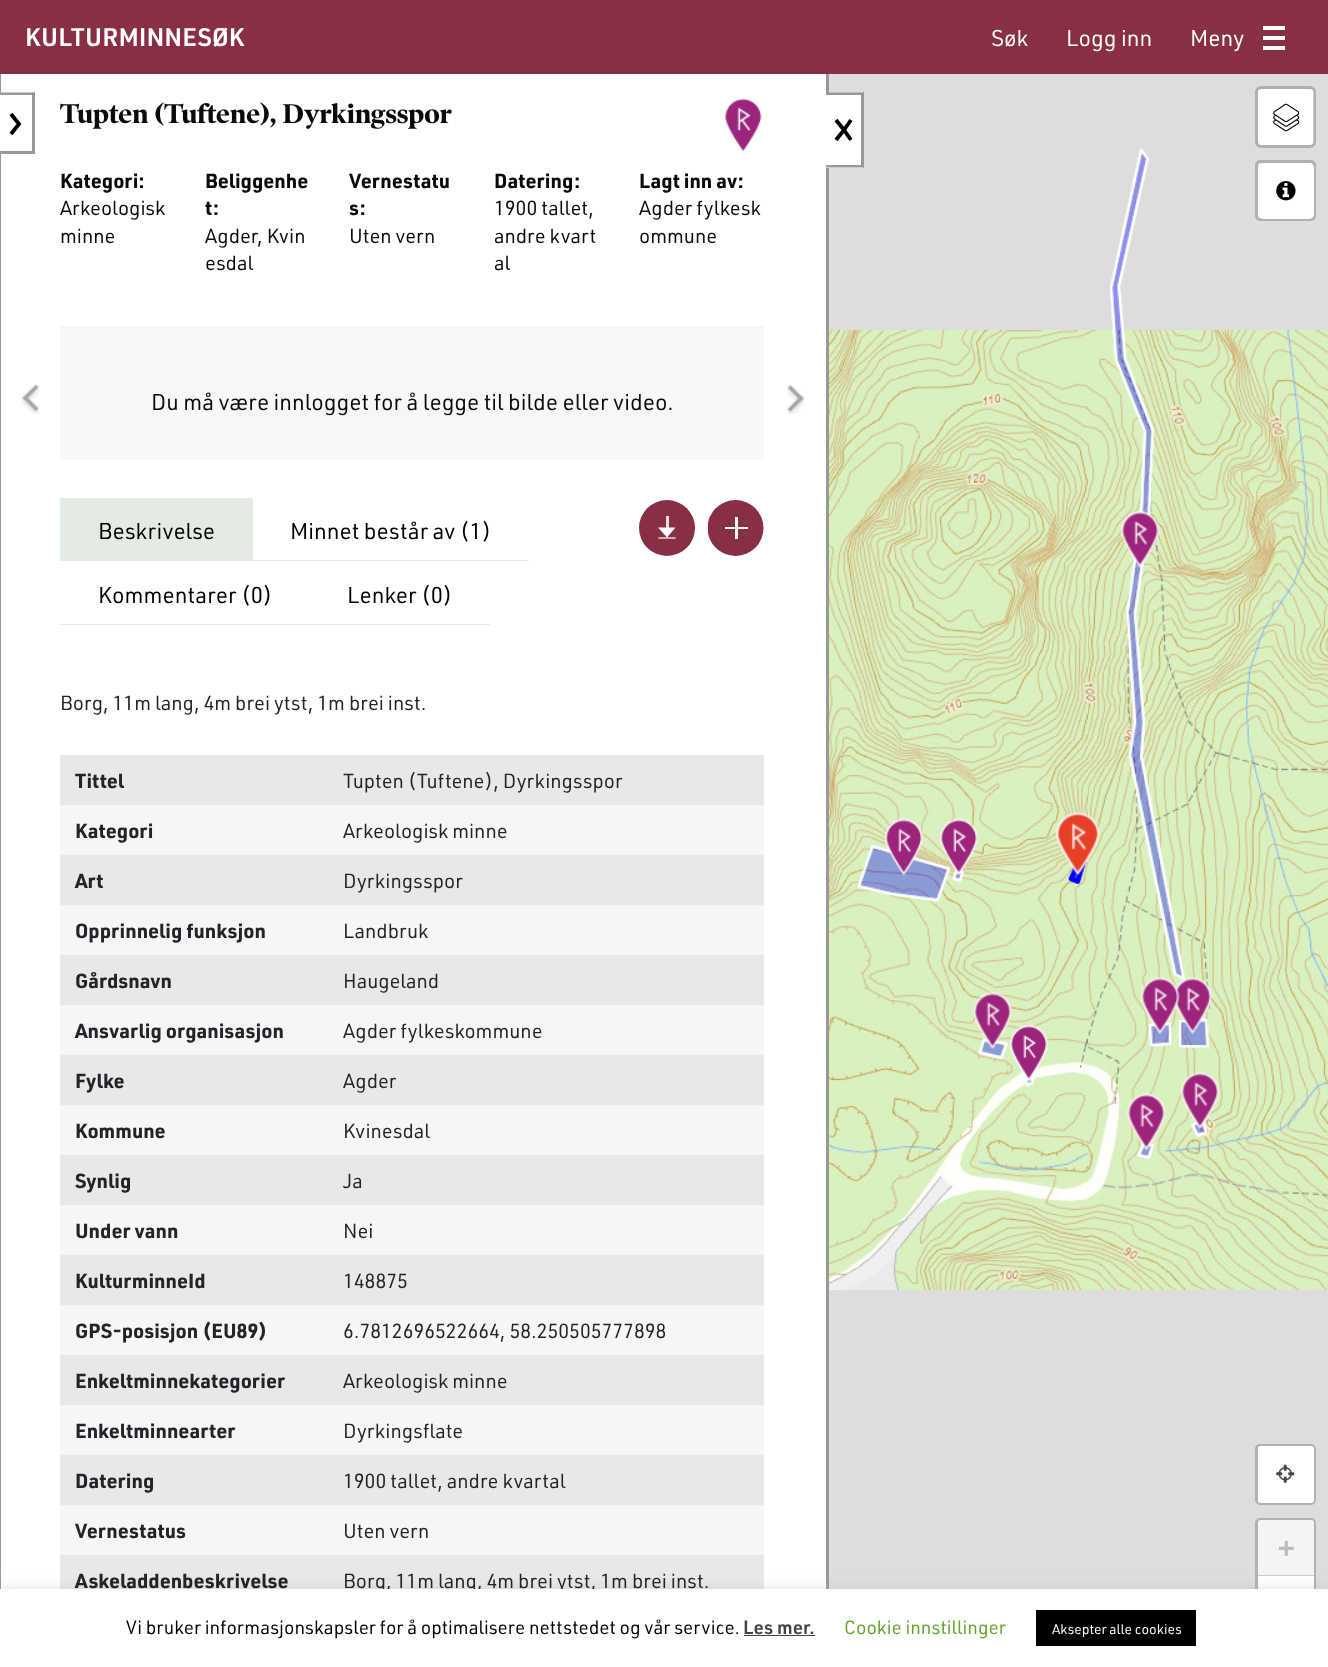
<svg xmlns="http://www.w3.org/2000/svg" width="1328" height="1667">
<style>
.a{font:600 25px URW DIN;fill:#fff}
.b{font:22.5px URW DIN;fill:#fff}
.c{font:bold 27.5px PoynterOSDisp;fill:#0a0a0a}
.d{font:bold 20px URW DIN;fill:#0a0a0a}
.e{font:20px URW DIN;fill:#0a0a0a}
.f{font:22.5px URW DIN;fill:#0a0a0a}
.g{font:22.5px URW DIN;fill:#000}
.h{font:20px URW DIN;fill:#212529}
.i{font:bold 20px URW DIN;fill:#212529}
.j{font:bold 27.5px DejaVu Sans Mono;fill:#bbb}
.k{font:18.75px URW DIN;fill:#000}
.l{font:600 18.75px URW DIN;fill:#444}
.m{font:18.75px URW DIN;fill:#62a329}
.n{font:13.75px URW DIN;fill:#fff}
</style>
<defs>
<clipPath id="clip1"><path d="M708 500h56v56H708z"/></clipPath>
</defs>
<rect width="100%" height="100%" fill="#fff"/>
<path fill="#892f43" d="M0 0h1328v74H0z"/>
<path fill="#fff" d="M1263 36h22v4H1263z"/>
<path fill="#fff" d="M1263 26h22v4H1263z"/>
<path fill="#fff" d="M1263 46h22v4H1263z"/>
<path fill="#999" d="M0 74h1v1515H0z"/>
<path fill="#fff" d="M0 93h1v61H0z"/>
<path fill="#999" d="M-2.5 92.5h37.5l-2.5 2.5h-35z"/>
<path fill="#00000066" d="M35 92v62l-3-3v-56z"/>
<path fill="#00000066" d="M35 154h-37.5v-3h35z"/>
<path fill="none" stroke="#000" stroke-width="3.8" d="M11 134l8-10l-8-10"/>
<path fill="#999" d="M826 74h3v1515H826z"/>
<image href="1.png" x="724" y="98" width="38" height="54"/>
<path fill="#ddd" d="M829 74h499v1515H829z"/>
<image href="5.png" x="829" y="330" width="259" height="320"/>
<image href="6.png" x="1088" y="330" width="240" height="320"/>
<image href="7.png" x="829" y="650" width="259" height="320"/>
<image href="8.png" x="1088" y="650" width="240" height="320"/>
<image href="9.png" x="829" y="970" width="259" height="320"/>
<image href="10.png" x="1088" y="970" width="240" height="320"/>
<image href="4.png" x="857" y="148" width="352" height="1011"/>
<path fill="#fff" d="M826 93h38v75H826z"/>
<path fill="#999" d="M826 92.5h38l-3 2.5h-35z"/>
<path fill="#00000066" d="M864 92v76l-3-3v-70z"/>
<path fill="#00000066" d="M864 167.5h-38v-2.5h35z"/>
<path fill="none" stroke="#000" stroke-width="3.8" d="M851 120l-7 10l7 10m-15 0l8-10l-8-10"/>
<image href="2.png" x="21" y="384" width="19" height="30"/>
<path fill="#f7f7f7" d="M60 326h704v134H60z"/>
<image href="3.png" x="787" y="385" width="18" height="29"/>
<circle fill="#892f43" cx="667" cy="528" r="28"/>
<path fill="#fff" fill-rule="evenodd" d="M667 537.5l-9-10h17.5z"/>
<path fill="#ffffffd4" d="M666 516h3v16H666z"/>
<path fill="none" stroke="#fff" stroke-width="1.2" stroke-linecap="square" d="M659 538h16"/>
<g clip-path="url(#clip1)">
<circle fill="#892f43" cx="735.5" cy="528" r="28"/>
</g>
<path fill="#fff" d="M725 527h23v2H725z"/>
<path fill="#fff" d="M735 517h3v22H735z"/>
<path fill="#e4ebe4" d="M60 498h193v63H60z"/>
<path fill="#e4ebe4" d="M253 560h276v1H253z"/>
<path fill="#e4ebe4" d="M60 624h430v1H60z"/>
<path fill="#e8e8e8" d="M60 755h704v834H60z"/>
<path fill="#f6f6f6" d="M60 805h704v50H60z"/>
<path fill="#f6f6f6" d="M60 905h704v50H60z"/>
<path fill="#f6f6f6" d="M60 1005h704v50H60z"/>
<path fill="#f6f6f6" d="M60 1105h704v50H60z"/>
<path fill="#f6f6f6" d="M60 1205h704v50H60z"/>
<path fill="#f6f6f6" d="M60 1305h704v50H60z"/>
<path fill="#f6f6f6" d="M60 1405h704v50H60z"/>
<path fill="#f6f6f6" d="M60 1505h704v50H60z"/>
<image href="11.png" x="1121" y="511" width="39" height="57"/>
<image href="15.png" x="1058" y="815" width="39" height="57"/>
<image href="12.png" x="1056" y="812" width="44" height="64"/>
<image href="13.png" x="885" y="818" width="38" height="58"/>
<image href="14.png" x="940" y="818" width="38" height="58"/>
<image href="16.png" x="973" y="992" width="39" height="58"/>
<image href="17.png" x="1010" y="1025" width="38" height="57"/>
<image href="19.png" x="1174" y="977" width="38" height="58"/>
<image href="18.png" x="1141" y="977" width="39" height="58"/>
<image href="20.png" x="1127" y="1093" width="39" height="58"/>
<image href="21.png" x="1181" y="1072" width="39" height="58"/>
<rect fill="#fff" x="1258" y="89" width="56" height="56" rx="4"/>
<rect fill="none" stroke="#00000033" stroke-width="3" x="1256.5" y="87.5" width="58" height="59" rx="4.5"/>
<image href="22.png" x="1273" y="103" width="27" height="29"/>
<rect fill="none" stroke="#b1b1b1" stroke-width="3" x="1256.5" y="161.5" width="58" height="58" rx="3.5"/>
<rect fill="#fff" x="1258" y="163" width="56" height="56" rx="5"/>
<image href="23.png" x="1276" y="181" width="20" height="20"/>
<rect fill="none" stroke="#b1b1b1" stroke-width="3" x="1256.5" y="1445.5" width="58" height="58" rx="3.5"/>
<rect fill="#fff" x="1258" y="1446" width="56" height="57" rx="2.5"/>
<image href="24.png" x="1276" y="1464" width="19" height="19"/>
<rect fill="none" stroke="#b1b1b1" stroke-width="3" x="1256.5" y="1519.5" width="58" height="114" rx="3.5"/>
<path fill="#f4f4f4" d="M1260.5 1520h51c1.5 0 2.5 1 2.5 2.5v53.5h-56v-53.5c0-1.5 1-2.5 2.5-2.5z"/>
<path fill="#ccc" d="M1258 1575h56v1H1258z"/>
<path fill="#fff" d="M1258 1576h56v13H1258z"/>
<path fill="#acabab4d" filter="blur(6px)" d="M0 1588h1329v78H0z"/>
<text class="a" x="25" y="46">KULTURMINNESØK</text>
<text class="b" x="991" y="46">Søk</text>
<text class="b" x="1066" y="46">Logg inn</text>
<text class="b" x="1190" y="46">Meny</text>
<text class="c" x="60" y="123">Tupten (Tuftene), Dyrkingsspor</text>
<text class="d" x="60" y="188">Kategori:</text>
<text class="e" x="60" y="215">Arkeologisk</text>
<text class="e" x="60" y="243">minne</text>
<text class="d" x="205" y="188">Beliggenhe</text>
<text class="d" x="205" y="215">t:</text>
<text class="e" x="205" y="243">Agder, Kvin</text>
<text class="e" x="205" y="270">esdal</text>
<text class="d" x="349" y="188">Vernestatu</text>
<text class="d" x="349" y="215">s:</text>
<text class="e" x="349" y="243">Uten vern</text>
<text class="d" x="494" y="188">Datering:</text>
<text class="e" x="494" y="215">1900 tallet,</text>
<text class="e" x="494" y="243">andre kvart</text>
<text class="e" x="494" y="270">al</text>
<text class="d" x="639" y="188">Lagt inn av:</text>
<text class="e" x="639" y="215">Agder fylkesk</text>
<text class="e" x="639" y="243">ommune</text>
<text class="f" x="151" y="410">Du må være innlogget for å legge til bilde eller video.</text>
<text class="g" x="98" y="539">Beskrivelse</text>
<text class="g" x="290" y="539">Minnet består av (1)</text>
<text class="g" x="98" y="603">Kommentarer (0)</text>
<text class="g" x="347" y="603">Lenker (0)</text>
<text class="h" x="60" y="710">Borg, 11m lang, 4m brei ytst, 1m brei inst.</text>
<text class="i" x="75" y="788">Tittel</text>
<text class="h" x="343" y="788">Tupten (Tuftene), Dyrkingsspor</text>
<text class="i" x="75" y="838">Kategori</text>
<text class="h" x="343" y="838">Arkeologisk minne</text>
<text class="i" x="75" y="888">Art</text>
<text class="h" x="343" y="888">Dyrkingsspor</text>
<text class="i" x="75" y="938">Opprinnelig funksjon</text>
<text class="h" x="343" y="938">Landbruk</text>
<text class="i" x="75" y="988">Gårdsnavn</text>
<text class="h" x="343" y="988">Haugeland</text>
<text class="i" x="75" y="1038">Ansvarlig organisasjon</text>
<text class="h" x="343" y="1038">Agder fylkeskommune</text>
<text class="i" x="75" y="1088">Fylke</text>
<text class="h" x="343" y="1088">Agder</text>
<text class="i" x="75" y="1138">Kommune</text>
<text class="h" x="343" y="1138">Kvinesdal</text>
<text class="i" x="75" y="1188">Synlig</text>
<text class="h" x="343" y="1188">Ja</text>
<text class="i" x="75" y="1238">Under vann</text>
<text class="h" x="343" y="1238">Nei</text>
<text class="i" x="75" y="1288">KulturminneId</text>
<text class="h" x="343" y="1288">148875</text>
<text class="i" x="75" y="1338">GPS-posisjon (EU89)</text>
<text class="h" x="343" y="1338">6.7812696522664, 58.250505777898</text>
<text class="i" x="75" y="1388">Enkeltminnekategorier</text>
<text class="h" x="343" y="1388">Arkeologisk minne</text>
<text class="i" x="75" y="1438">Enkeltminnearter</text>
<text class="h" x="343" y="1438">Dyrkingsflate</text>
<text class="i" x="75" y="1488">Datering</text>
<text class="h" x="343" y="1488">1900 tallet, andre kvartal</text>
<text class="i" x="75" y="1538">Vernestatus</text>
<text class="h" x="343" y="1538">Uten vern</text>
<text class="i" x="75" y="1588">Askeladdenbeskrivelse</text>
<text class="h" x="343" y="1588">Borg, 11m lang, 4m brei ytst, 1m brei inst.</text>
<text class="j" x="1278" y="1557">+</text>
<path fill="#fff" d="M0 1589h1328v78H0z"/>
<text class="k" x="126" y="1634">Vi bruker informasjonskapsler for å optimalisere nettstedet og vår service.</text>
<text class="l" x="743" y="1634">Les mer.</text>
<path fill="#444" d="M744 1635h71v1H744z"/>
<text class="m" x="844" y="1634">Cookie innstillinger</text>
<path fill="#000" d="M1036 1610h160v36H1036z"/>
<text class="n" x="1052" y="1634">Aksepter alle cookies</text>
</svg>
